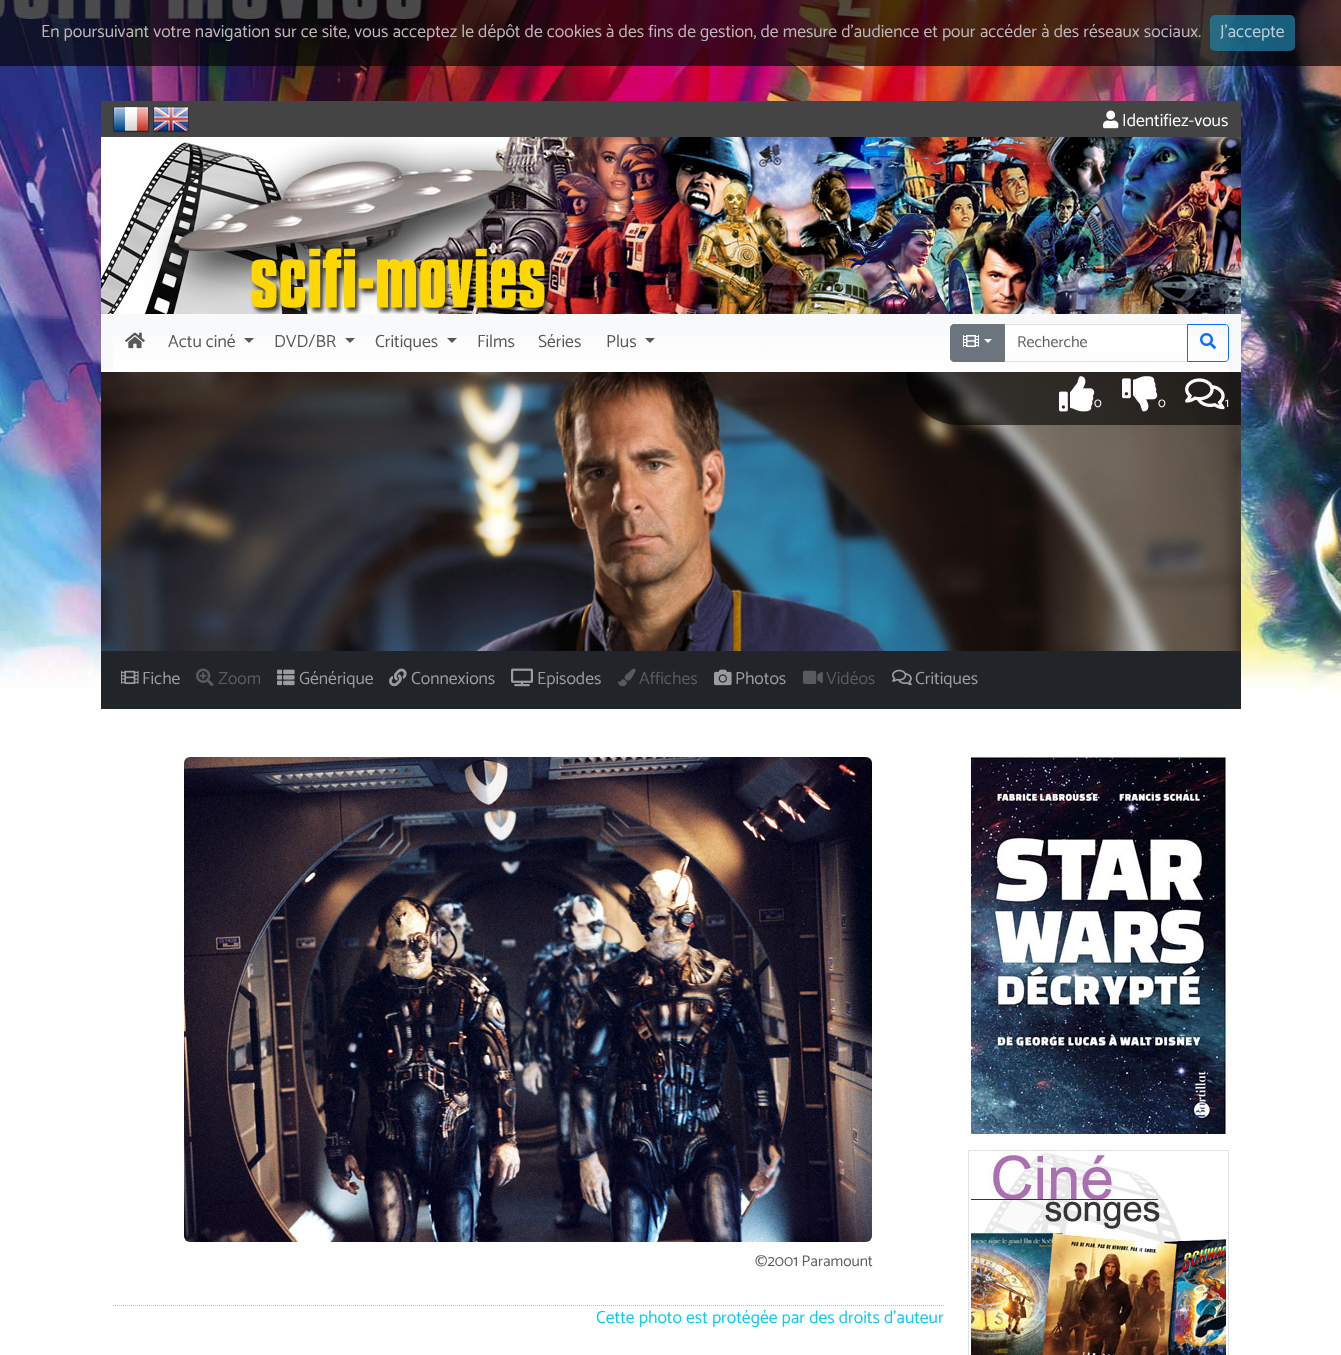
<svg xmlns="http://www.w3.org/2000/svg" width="1341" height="1355">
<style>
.a{font:100 17.6px Catamaran;fill:#c0b7ba}
.b{font:100 17.6px Catamaran;fill:#bbd0d9}
.c{font:100 17.6px Catamaran;fill:#fff}
.d{font:100 17.6px Catamaran;fill:#585858}
.e{font:100 16px Catamaran;fill:#595c5f}
.f{font:100 13px Catamaran;fill:#fff}
.g{font:100 17.6px Catamaran;fill:#9b9d9f}
.h{font:100 17.6px Catamaran;fill:#595c5f}
.i{font:100 15.5px Catamaran;fill:#595c5f}
.j{font:100 17.6px Catamaran;fill:#0dcaf0}
</style>
<defs>
<linearGradient id="g1" gradientUnits="userSpaceOnUse" x1="671" y1="314" x2="671" y2="372"><stop offset="0" stop-color="#f8f9fa"/><stop offset="1" stop-color="#fff"/></linearGradient>
</defs>
<rect width="100%" height="100%" fill="#fff"/>
<image href="1.png" x="0" y="0" width="1341" height="711"/>
<path fill="#050505b3" d="M0 0h1341v66H0z"/>
<rect fill="#1f83a8b3" x="1210" y="15" width="85" height="36" rx="5"/>
<path fill="#444" d="M101 101h1140v36H101z"/>
<image href="2.png" x="113" y="106" width="36" height="27"/>
<image href="3.png" x="153" y="106" width="36" height="27"/>
<image href="4.png" x="1103" y="110" width="16" height="19"/>
<image href="5.png" x="101" y="137" width="1140" height="177"/>
<path fill="#f8f9fa" d="M101 314h1140v58H101z"/>
<path fill="url(#g1)" d="M113 335h1116v37H113z"/>
<image href="6.png" x="125" y="332" width="20" height="17"/>
<path fill="#585858" d="M244 338h10l-5 5z"/>
<path fill="#585858" d="M345 338h10l-5 5z"/>
<path fill="#585858" d="M447 338h10l-5 5z"/>
<path fill="#585858" d="M645 338h10l-5 5z"/>
<path fill="#fff" d="M1005 325h182v26H1005z"/>
<path fill="none" stroke="#dee2e6" d="M1004.5 324.5h183v37H1004.5z"/>
<path fill="#6c757d" stroke="#6c757d" d="M954 324.5h50.5v37h-50.5c-2 0-3.5-1.5-3.5-3.5v-30c0-2 1.5-3.5 3.5-3.5z"/>
<image href="7.png" x="963" y="335" width="16" height="12"/>
<path fill="#fff" d="M984 339h8l-4 4z"/>
<path fill="none" stroke="#0d6efd" d="M1187.5 324.5h37.5c2 0 3.5 1.5 3.5 3.5v30c0 2-1.5 3.5-3.5 3.5h-37.5z"/>
<image href="8.png" x="1200" y="333" width="16" height="16"/>
<image href="9.png" x="101" y="372" width="1140" height="279"/>
<path fill="#00000099" d="M906 372h335v53h-282c-29.5 0-53-23.5-53-53z"/>
<image href="10.png" x="1059" y="376" width="36" height="36"/>
<image href="11.png" x="1122" y="376" width="36" height="36"/>
<image href="12.png" x="1185" y="378" width="40" height="32"/>
<path fill="#212529" d="M101 651h1140v58H101z"/>
<image href="13.png" x="121" y="670" width="18" height="14"/>
<image href="14.png" x="196" y="668" width="18" height="18"/>
<image href="15.png" x="277" y="669" width="18" height="17"/>
<image href="16.png" x="389" y="668" width="18" height="19"/>
<image href="17.png" x="511" y="668" width="22" height="19"/>
<image href="18.png" x="618" y="668" width="18" height="19"/>
<image href="19.png" x="714" y="669" width="18" height="17"/>
<image href="20.png" x="803" y="670" width="20" height="14"/>
<image href="21.png" x="892" y="669" width="20" height="17"/>
<path fill="#fff" d="M1199 709h23v2H1199z"/>
<image href="22.png" x="184" y="757" width="688" height="485"/>
<path fill="none" stroke="#c0c0c0" stroke-dasharray="1 1" d="M113 1305.5h831"/>
<image href="23.png" x="971" y="757" width="255" height="377"/>
<path fill="none" stroke="#dee2e6" d="M968.5 1150.5h260v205H968.5z"/>
<image href="24.png" x="971" y="1151" width="255" height="204"/>
<text class="a" x="41" y="37">En poursuivant votre navigation sur ce site, vous acceptez le dépôt de cookies à des fins de gestion, de mesure d’audience et pour accéder à des réseaux sociaux.</text>
<text class="b" x="1220" y="37">J'accepte</text>
<text class="c" x="1122" y="126">Identifiez-vous</text>
<text class="d" x="168" y="347">Actu ciné</text>
<text class="d" x="274" y="347">DVD/BR</text>
<text class="d" x="375" y="347">Critiques</text>
<text class="d" x="477" y="347">Films</text>
<text class="d" x="538" y="347">Séries</text>
<text class="d" x="606" y="347">Plus</text>
<text class="e" x="1017" y="347">Recherche</text>
<text class="f" x="1094" y="407">0</text>
<text class="f" x="1158" y="407">0</text>
<text class="f" x="1225" y="407">1</text>
<text class="g" x="142" y="684">Fiche</text>
<text class="h" x="218" y="684">Zoom</text>
<text class="g" x="299" y="684">Générique</text>
<text class="g" x="411" y="684">Connexions</text>
<text class="g" x="537" y="684">Episodes</text>
<text class="h" x="639" y="684">Affiches</text>
<text class="g" x="735" y="684">Photos</text>
<text class="h" x="826" y="684">Vidéos</text>
<text class="g" x="915" y="684">Critiques</text>
<text class="i" x="755" y="1266">©2001 Paramount</text>
<text class="j" x="596" y="1323">Cette photo est protégée par des droits d'auteur</text>
</svg>
